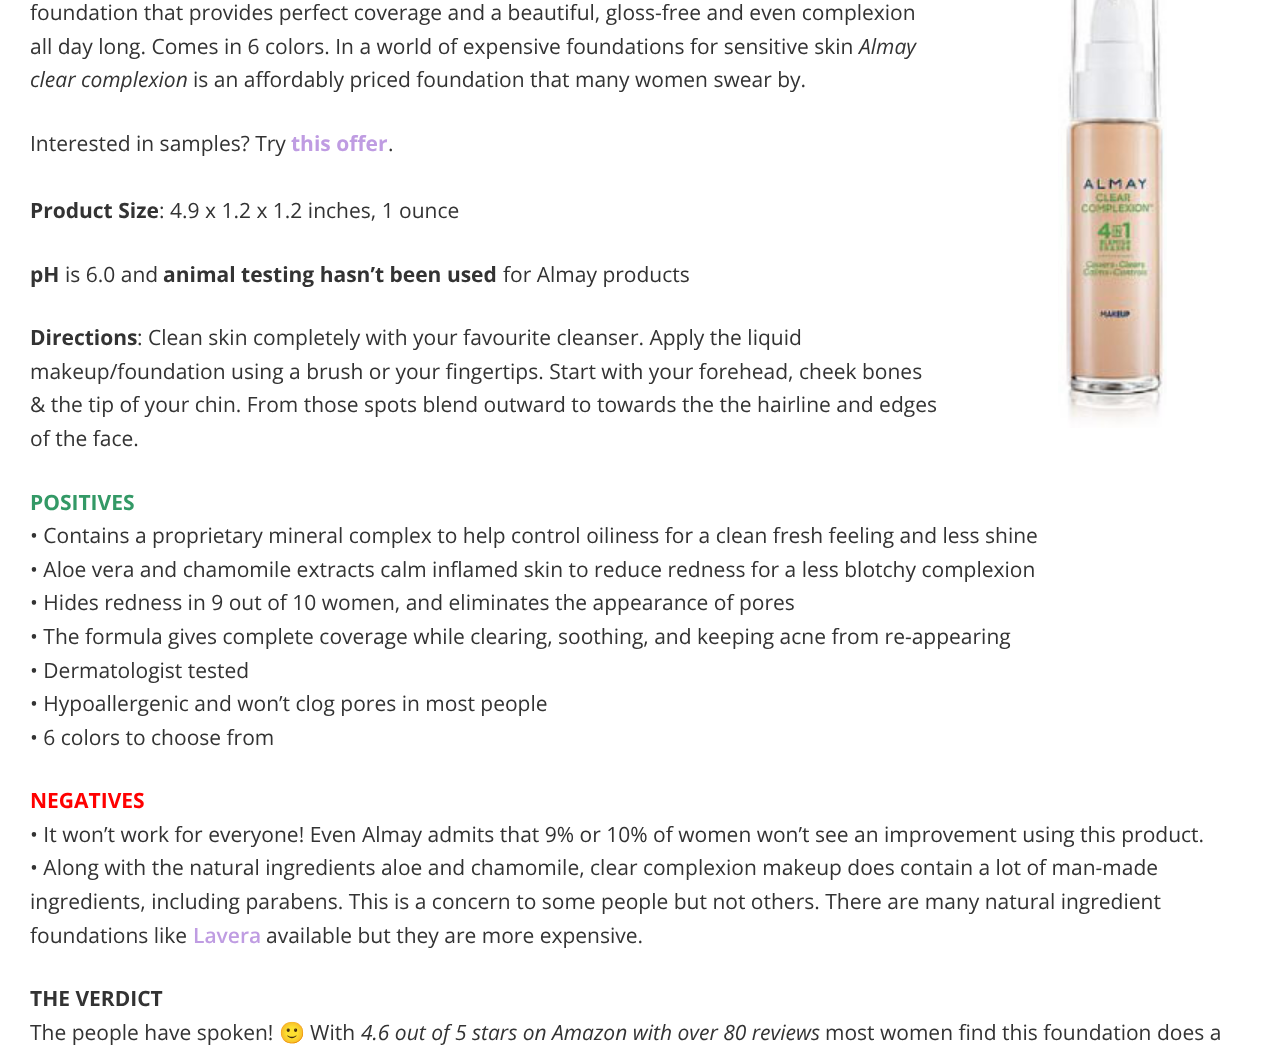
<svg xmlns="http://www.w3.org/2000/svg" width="1279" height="1046">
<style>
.a{font:21px Open Sans;fill:#333}
.b{font:italic 21px Open Sans;fill:#333}
.c{font:bold 21px Open Sans;fill:#bf9ce2}
.d{font:bold 21px Open Sans;fill:#333}
.e{font:bold 21px Open Sans;fill:#396}
.f{font:bold 21px Open Sans;fill:#f00}
.g{font:600 21px Open Sans;fill:#bf9ce2}
.h{font:21px Noto Color Emoji;fill:#333}
</style>
<rect width="100%" height="100%" fill="#fff"/>
<image href="1.png" x="1058" y="0" width="109" height="428"/>
<text class="a" x="30" y="20">foundation that provides perfect coverage and a beautiful, gloss-free and even complexion</text>
<text class="a" x="30" y="54">all day long. Comes in 6 colors. In a world of expensive foundations for sensitive skin</text>
<text class="b" x="859" y="54">Almay</text>
<text class="b" x="30" y="87">clear complexion</text>
<text class="a" x="193" y="87">is an affordably priced foundation that many women swear by.</text>
<text class="a" x="30" y="151">Interested in samples? Try</text>
<text class="c" x="291" y="151">this offer</text>
<text class="a" x="388" y="151">.</text>
<text class="d" x="30" y="218">Product Size</text>
<text class="a" x="159" y="218">: 4.9 x 1.2 x 1.2 inches, 1 ounce</text>
<text class="d" x="30" y="282">pH</text>
<text class="a" x="65" y="282">is 6.0 and</text>
<text class="d" x="163" y="282">animal testing hasn’t been used</text>
<text class="a" x="503" y="282">for Almay products</text>
<text class="d" x="30" y="345">Directions</text>
<text class="a" x="137" y="345">: Clean skin completely with your favourite cleanser. Apply the liquid</text>
<text class="a" x="30" y="379">makeup/foundation using a brush or your fingertips. Start with your forehead, cheek bones</text>
<text class="a" x="30" y="412">&amp; the tip of your chin. From those spots blend outward to towards the the hairline and edges</text>
<text class="a" x="30" y="446">of the face.</text>
<text class="e" x="30" y="510">POSITIVES</text>
<text class="a" x="30" y="543">• Contains a proprietary mineral complex to help control oiliness for a clean fresh feeling and less shine</text>
<text class="a" x="30" y="577">• Aloe vera and chamomile extracts calm inflamed skin to reduce redness for a less blotchy complexion</text>
<text class="a" x="30" y="610">• Hides redness in 9 out of 10 women, and eliminates the appearance of pores</text>
<text class="a" x="30" y="644">• The formula gives complete coverage while clearing, soothing, and keeping acne from re-appearing</text>
<text class="a" x="30" y="678">• Dermatologist tested</text>
<text class="a" x="30" y="711">• Hypoallergenic and won’t clog pores in most people</text>
<text class="a" x="30" y="745">• 6 colors to choose from</text>
<text class="f" x="30" y="808">NEGATIVES</text>
<text class="a" x="30" y="842">• It won’t work for everyone! Even Almay admits that 9% or 10% of women won’t see an improvement using this product.</text>
<text class="a" x="30" y="875">• Along with the natural ingredients aloe and chamomile, clear complexion makeup does contain a lot of man-made</text>
<text class="a" x="30" y="909">ingredients, including parabens. This is a concern to some people but not others. There are many natural ingredient</text>
<text class="a" x="30" y="943">foundations like</text>
<text class="g" x="193" y="943">Lavera</text>
<text class="a" x="266" y="943">available but they are more expensive.</text>
<text class="d" x="30" y="1006">THE VERDICT</text>
<text class="a" x="30" y="1040">The people have spoken!</text>
<text class="h" x="279" y="1040">🙂</text>
<text class="a" x="310" y="1040">With</text>
<text class="b" x="361" y="1040">4.6 out of 5 stars on Amazon with over 80 reviews</text>
<text class="a" x="825" y="1040">most women find this foundation does a</text>
</svg>
